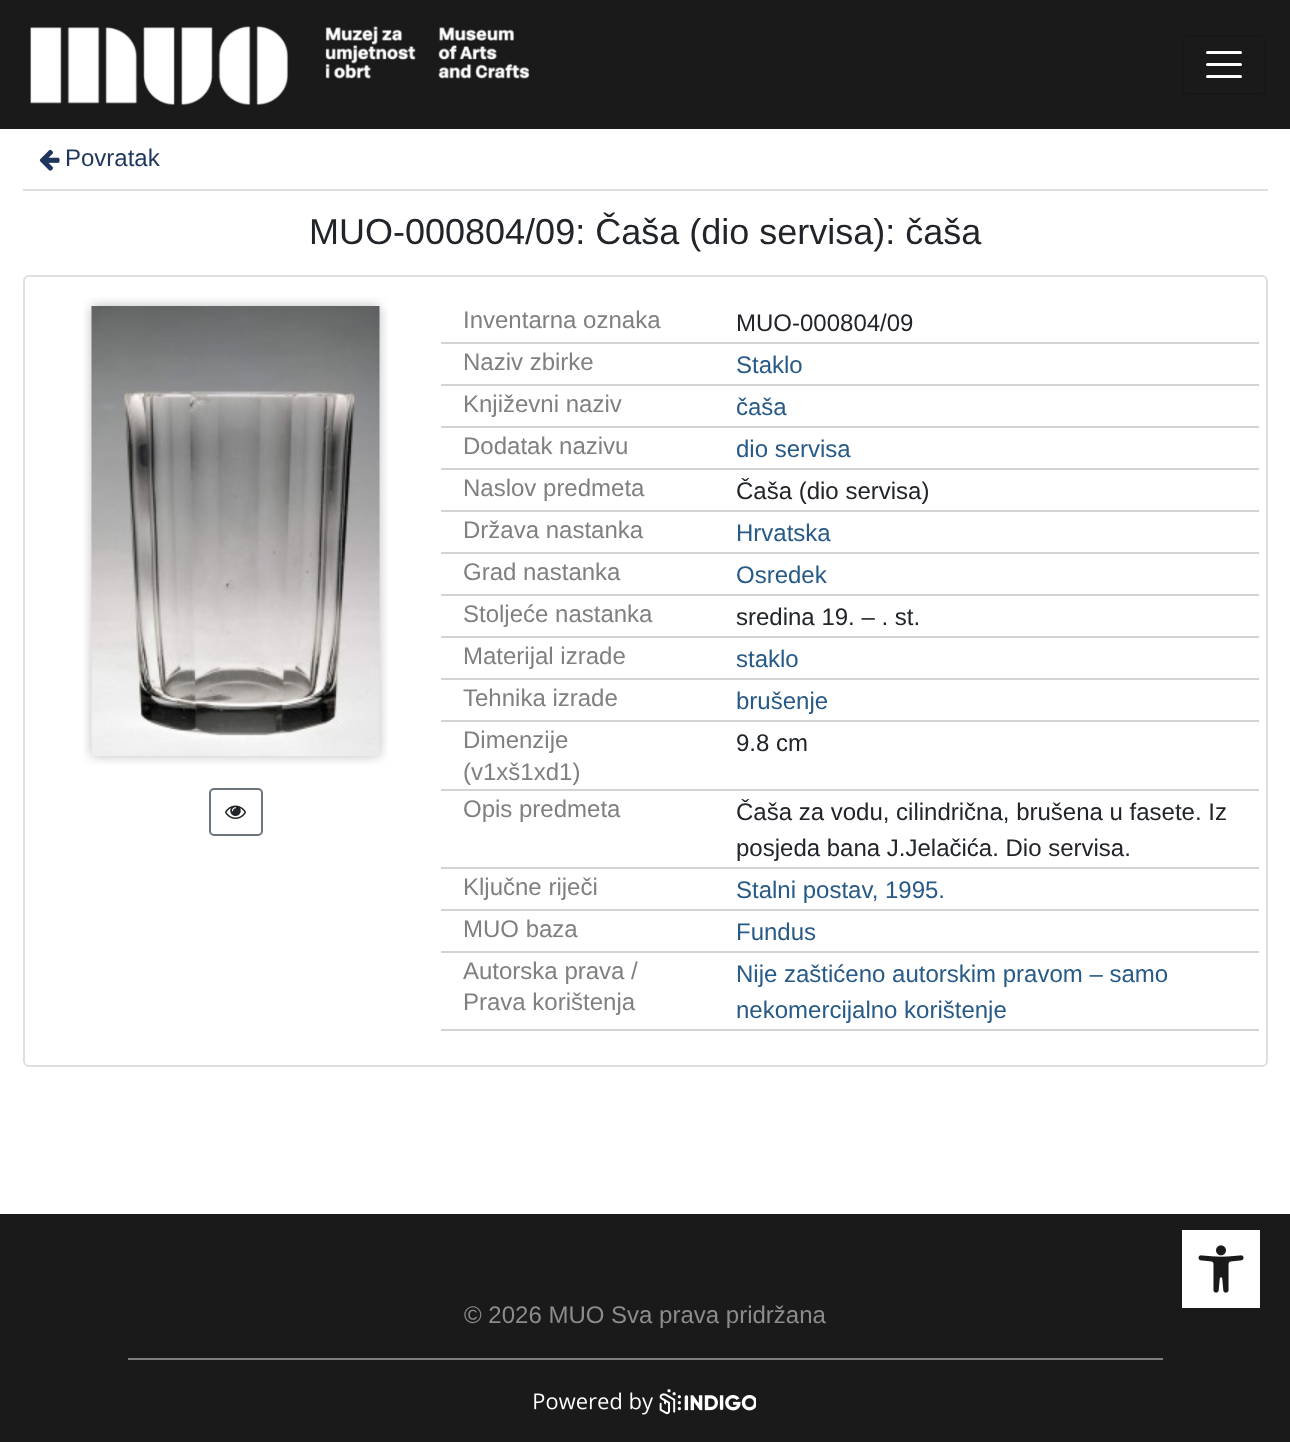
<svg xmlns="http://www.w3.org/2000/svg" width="1290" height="1442">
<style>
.a{font:24px Liberation Sans;fill:#1f365c}
.b{font:36px Liberation Sans;fill:#212529}
.c{font:24px Liberation Sans;fill:#808080}
.d{font:24px Liberation Sans;fill:#212529}
.e{font:24px Liberation Sans;fill:#275a87}
.f{font:24px Liberation Sans;fill:#8b8c8d}
</style>
<rect width="100%" height="100%" fill="#fff"/>
<path fill="#1a1a1a" d="M0 0h1290v129H0z"/>
<image href="1.png" x="30" y="26" width="500" height="79"/>
<rect fill="none" stroke="#171717" stroke-width="2" x="1183" y="36" width="82" height="58" rx="5"/>
<path fill="none" stroke="#fff" stroke-width="3" stroke-linecap="round" d="M1207.5 52.5h33m-33 12h33m-33 12h33"/>
<path fill="#dfdfdf" d="M23 189h1245v2H23z"/>
<image href="2.png" x="39" y="149" width="21" height="22"/>
<rect fill="none" stroke="#dfdfdf" stroke-width="2" x="24" y="276" width="1243" height="790" rx="5"/>
<image href="3.png" x="83" y="297" width="305" height="468"/>
<rect fill="none" stroke="#6c757d" stroke-width="2" x="210" y="789" width="52" height="46" rx="4"/>
<image href="4.png" x="225" y="805" width="21" height="14"/>
<path fill="#d3d3d3" d="M441 342h818v2H441z"/>
<path fill="#d3d3d3" d="M441 384h818v2H441z"/>
<path fill="#d3d3d3" d="M441 426h818v2H441z"/>
<path fill="#d3d3d3" d="M441 468h818v2H441z"/>
<path fill="#d3d3d3" d="M441 510h818v2H441z"/>
<path fill="#d3d3d3" d="M441 552h818v2H441z"/>
<path fill="#d3d3d3" d="M441 594h818v2H441z"/>
<path fill="#d3d3d3" d="M441 636h818v2H441z"/>
<path fill="#d3d3d3" d="M441 678h818v2H441z"/>
<path fill="#d3d3d3" d="M441 720h818v2H441z"/>
<path fill="#d3d3d3" d="M441 789h818v2H441z"/>
<path fill="#d3d3d3" d="M441 867h818v2H441z"/>
<path fill="#d3d3d3" d="M441 909h818v2H441z"/>
<path fill="#d3d3d3" d="M441 951h818v2H441z"/>
<path fill="#d3d3d3" d="M441 1029h818v2H441z"/>
<path fill="#1a1a1a" d="M0 1214h1290v228H0z"/>
<path fill="#fff" d="M1182 1230h78v78H1182z"/>
<image href="5.png" x="1198" y="1245" width="46" height="48"/>
<path fill="#7d7e7f" d="M128 1358h1035v2H128z"/>
<image href="6.png" x="534" y="1389" width="222" height="26"/>
<text class="a" x="65" y="166">Povratak</text>
<text class="b" x="309" y="244">MUO-000804/09: Čaša (dio servisa): čaša</text>
<text class="c" x="463" y="328">Inventarna oznaka</text>
<text class="d" x="736" y="331">MUO-000804/09</text>
<text class="c" x="463" y="370">Naziv zbirke</text>
<text class="e" x="736" y="373">Staklo</text>
<text class="c" x="463" y="412">Književni naziv</text>
<text class="e" x="736" y="415">čaša</text>
<text class="c" x="463" y="454">Dodatak nazivu</text>
<text class="e" x="736" y="457">dio servisa</text>
<text class="c" x="463" y="496">Naslov predmeta</text>
<text class="d" x="736" y="499">Čaša (dio servisa)</text>
<text class="c" x="463" y="538">Država nastanka</text>
<text class="e" x="736" y="541">Hrvatska</text>
<text class="c" x="463" y="580">Grad nastanka</text>
<text class="e" x="736" y="583">Osredek</text>
<text class="c" x="463" y="622">Stoljeće nastanka</text>
<text class="d" x="736" y="625">sredina 19. – . st.</text>
<text class="c" x="463" y="664">Materijal izrade</text>
<text class="e" x="736" y="667">staklo</text>
<text class="c" x="463" y="706">Tehnika izrade</text>
<text class="e" x="736" y="709">brušenje</text>
<text class="c" x="463" y="748">Dimenzije</text>
<text class="c" x="463" y="780">(v1xš1xd1)</text>
<text class="d" x="736" y="751">9.8 cm</text>
<text class="c" x="463" y="817">Opis predmeta</text>
<text class="d" x="736" y="820">Čaša za vodu, cilindrična, brušena u fasete. Iz</text>
<text class="d" x="736" y="856">posjeda bana J.Jelačića. Dio servisa.</text>
<text class="c" x="463" y="895">Ključne riječi</text>
<text class="e" x="736" y="898">Stalni postav, 1995.</text>
<text class="c" x="463" y="937">MUO baza</text>
<text class="e" x="736" y="940">Fundus</text>
<text class="c" x="463" y="979">Autorska prava /</text>
<text class="c" x="463" y="1010">Prava korištenja</text>
<text class="e" x="736" y="982">Nije zaštićeno autorskim pravom – samo</text>
<text class="e" x="736" y="1018">nekomercijalno korištenje</text>
<text class="f" x="464" y="1323">© 2026 MUO Sva prava pridržana</text>
</svg>
